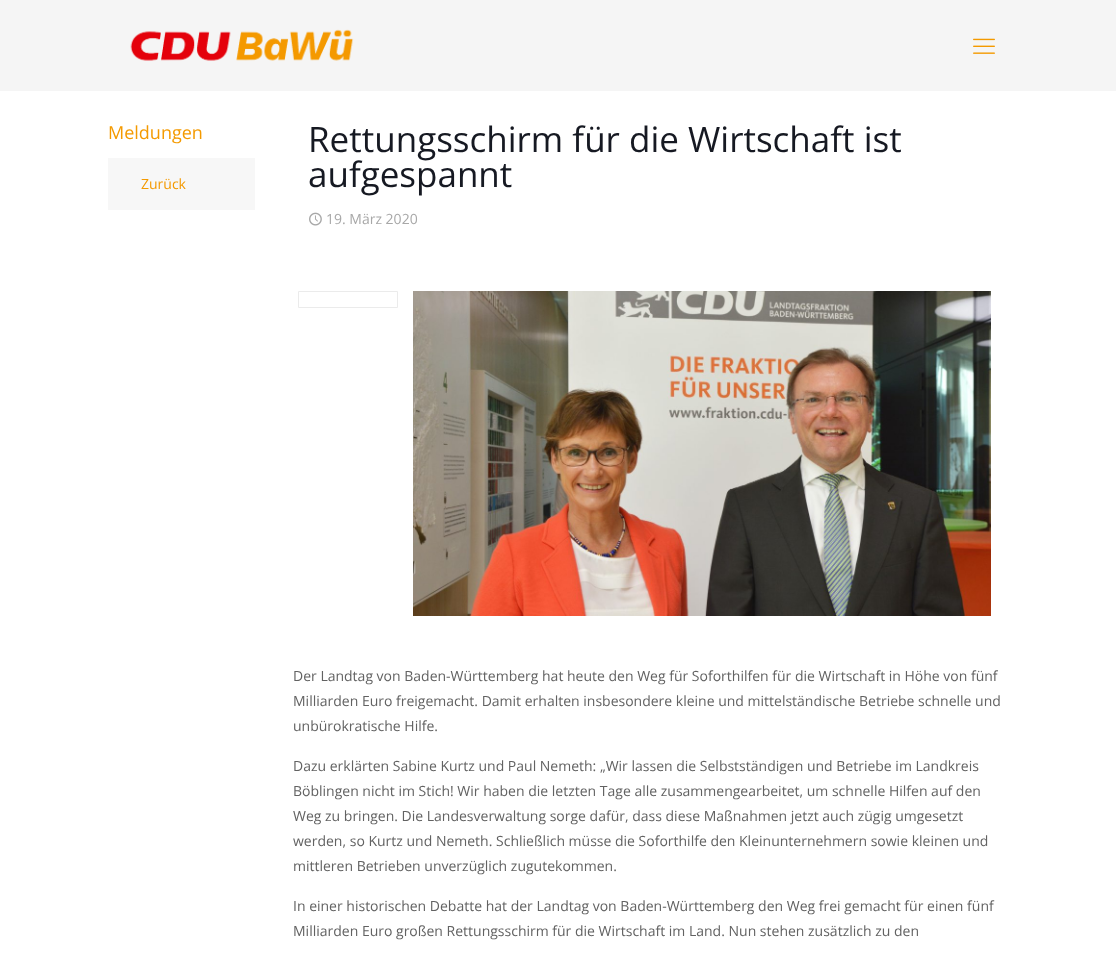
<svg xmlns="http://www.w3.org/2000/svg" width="1116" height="958">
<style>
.a{font:18px Open Sans;fill:#f49a00}
.b{font:14px Open Sans;fill:#f49a00}
.c{font:35px Open Sans;fill:#161922}
.d{font:14px Open Sans;fill:#a8a8a8}
.e{font:14px Open Sans;fill:#626262}
</style>
<rect width="100%" height="100%" fill="#fff"/>
<path fill="#f5f5f5" d="M0 0h1116v91H0z"/>
<image href="1.png" x="130" y="29" width="224" height="32"/>
<image href="2.png" x="973" y="38" width="22" height="16"/>
<path fill="#f7f7f7" d="M108 158h147v52H108z"/>
<image href="3.png" x="309" y="212" width="13" height="14"/>
<path fill="none" stroke="#ebebeb" d="M298.5 291.5h99v16H298.5z"/>
<image href="4.png" x="413" y="291" width="578" height="325"/>
<text class="a" x="108" y="139">Meldungen</text>
<text class="b" x="141" y="189">Zurück</text>
<text class="c" x="308" y="152">Rettungsschirm für die Wirtschaft ist</text>
<text class="c" x="308" y="187">aufgespannt</text>
<text class="d" x="326" y="224">19. März 2020</text>
<text class="e" x="293" y="681">Der Landtag von Baden-Württemberg hat heute den Weg für Soforthilfen für die Wirtschaft in Höhe von fünf</text>
<text class="e" x="293" y="706">Milliarden Euro freigemacht. Damit erhalten insbesondere kleine und mittelständische Betriebe schnelle und</text>
<text class="e" x="293" y="731">unbürokratische Hilfe.</text>
<text class="e" x="293" y="771">Dazu erklärten Sabine Kurtz und Paul Nemeth: „Wir lassen die Selbstständigen und Betriebe im Landkreis</text>
<text class="e" x="293" y="796">Böblingen nicht im Stich! Wir haben die letzten Tage alle zusammengearbeitet, um schnelle Hilfen auf den</text>
<text class="e" x="293" y="821">Weg zu bringen. Die Landesverwaltung sorge dafür, dass diese Maßnahmen jetzt auch zügig umgesetzt</text>
<text class="e" x="293" y="846">werden, so Kurtz und Nemeth. Schließlich müsse die Soforthilfe den Kleinunternehmern sowie kleinen und</text>
<text class="e" x="293" y="871">mittleren Betrieben unverzüglich zugutekommen.</text>
<text class="e" x="293" y="911">In einer historischen Debatte hat der Landtag von Baden-Württemberg den Weg frei gemacht für einen fünf</text>
<text class="e" x="293" y="936">Milliarden Euro großen Rettungsschirm für die Wirtschaft im Land. Nun stehen zusätzlich zu den</text>
</svg>
